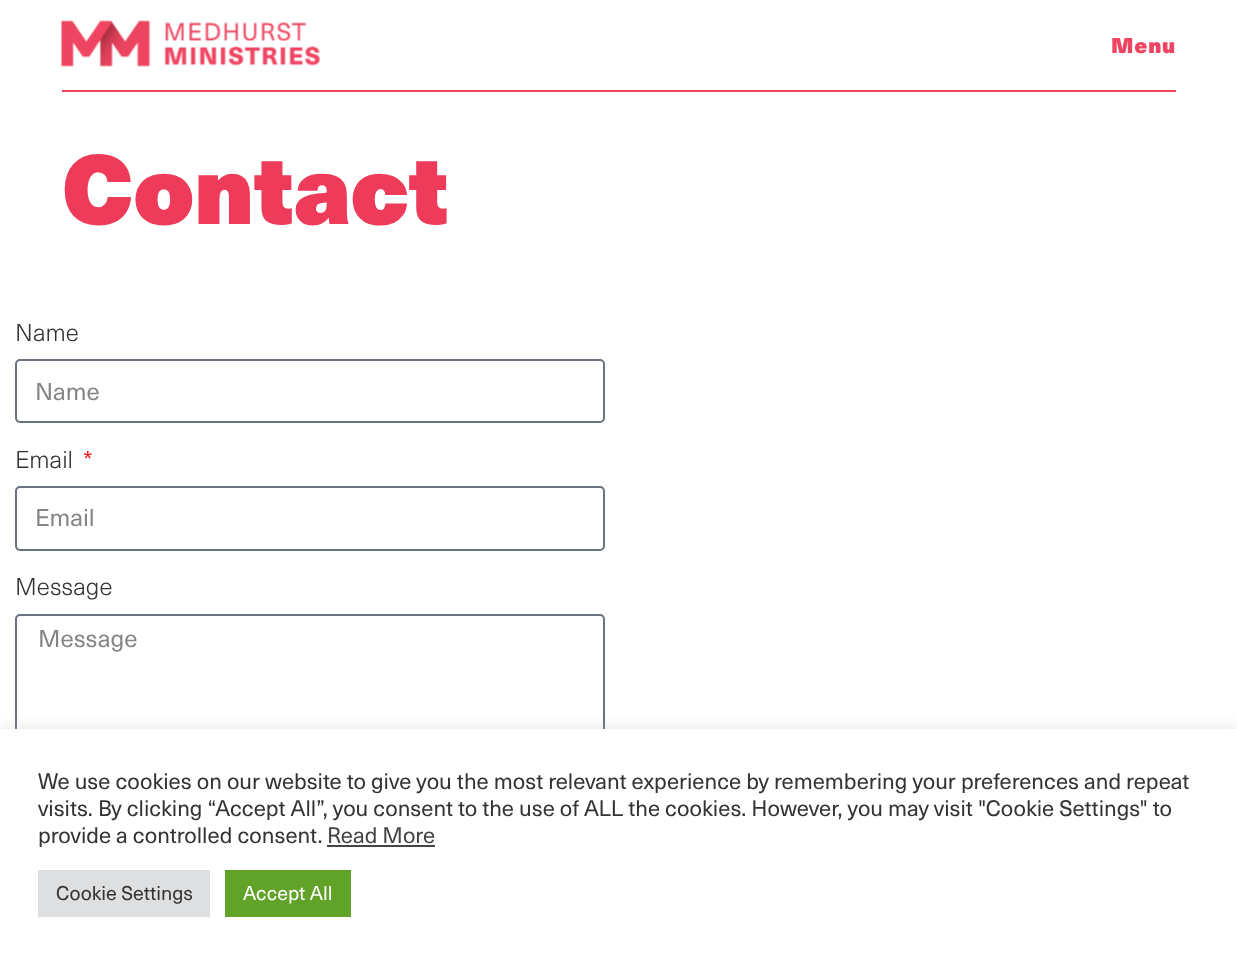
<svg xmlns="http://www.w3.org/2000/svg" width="1237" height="961">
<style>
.a{font:900 21px 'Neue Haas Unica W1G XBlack';letter-spacing:1px;fill:#f04562}
.b{font:900 96px 'Neue Haas Unica W1G XBlack';fill:#ef3b5a}
.c{font:300 24px 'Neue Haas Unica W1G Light';fill:#333}
.d{font:24px 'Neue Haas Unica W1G';fill:#858585}
.e{font:300 24px 'Neue Haas Unica W1G Light';fill:#f00}
.f{font:22px 'Neue Haas Unica W1G';fill:#333}
.g{font:22px 'Neue Haas Unica W1G';fill:#444}
.h{font:19.5px 'Neue Haas Unica W1G';fill:#333}
.i{font:19.5px 'Neue Haas Unica W1G';fill:#fff}
</style>
<rect width="100%" height="100%" fill="#fff"/>
<path fill="#f04562" d="M62 90h1114v2H62z"/>
<image href="1.png" x="61" y="20" width="259" height="47"/>
<rect fill="none" stroke="#69727d" stroke-width="2" x="16" y="360" width="588" height="62" rx="4"/>
<rect fill="none" stroke="#69727d" stroke-width="2" x="16" y="487" width="588" height="63" rx="4"/>
<rect fill="none" stroke="#69727d" stroke-width="2" x="16" y="615" width="588" height="149" rx="4"/>
<path fill="#acabab4d" filter="blur(7.5px)" d="M0 728h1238v232H0z"/>
<path fill="#fff" d="M0 729h1237v232H0z"/>
<path fill="#444" d="M327 845h108v2H327z"/>
<path fill="#dedfe0" d="M38 870h172v47H38z"/>
<path fill="#61a229" d="M225 870h126v47H225z"/>
<text class="a" x="1111" y="53">Menu</text>
<text class="b" x="62" y="224">Contact</text>
<text class="c" x="15" y="341">Name</text>
<text class="d" x="35" y="400">Name</text>
<text class="c" x="15" y="468">Email</text>
<text class="e" x="83" y="468">*</text>
<text class="d" x="35" y="526">Email</text>
<text class="c" x="15" y="595">Message</text>
<text class="d" x="38" y="647">Message</text>
<text class="f" x="38" y="789">We use cookies on our website to give you the most relevant experience by remembering your preferences and repeat</text>
<text class="f" x="38" y="816">visits. By clicking “Accept All”, you consent to the use of ALL the cookies. However, you may visit "Cookie Settings" to</text>
<text class="f" x="38" y="843">provide a controlled consent.</text>
<text class="g" x="327" y="843">Read More</text>
<text class="h" x="56" y="900">Cookie Settings</text>
<text class="i" x="243" y="900">Accept All</text>
</svg>
